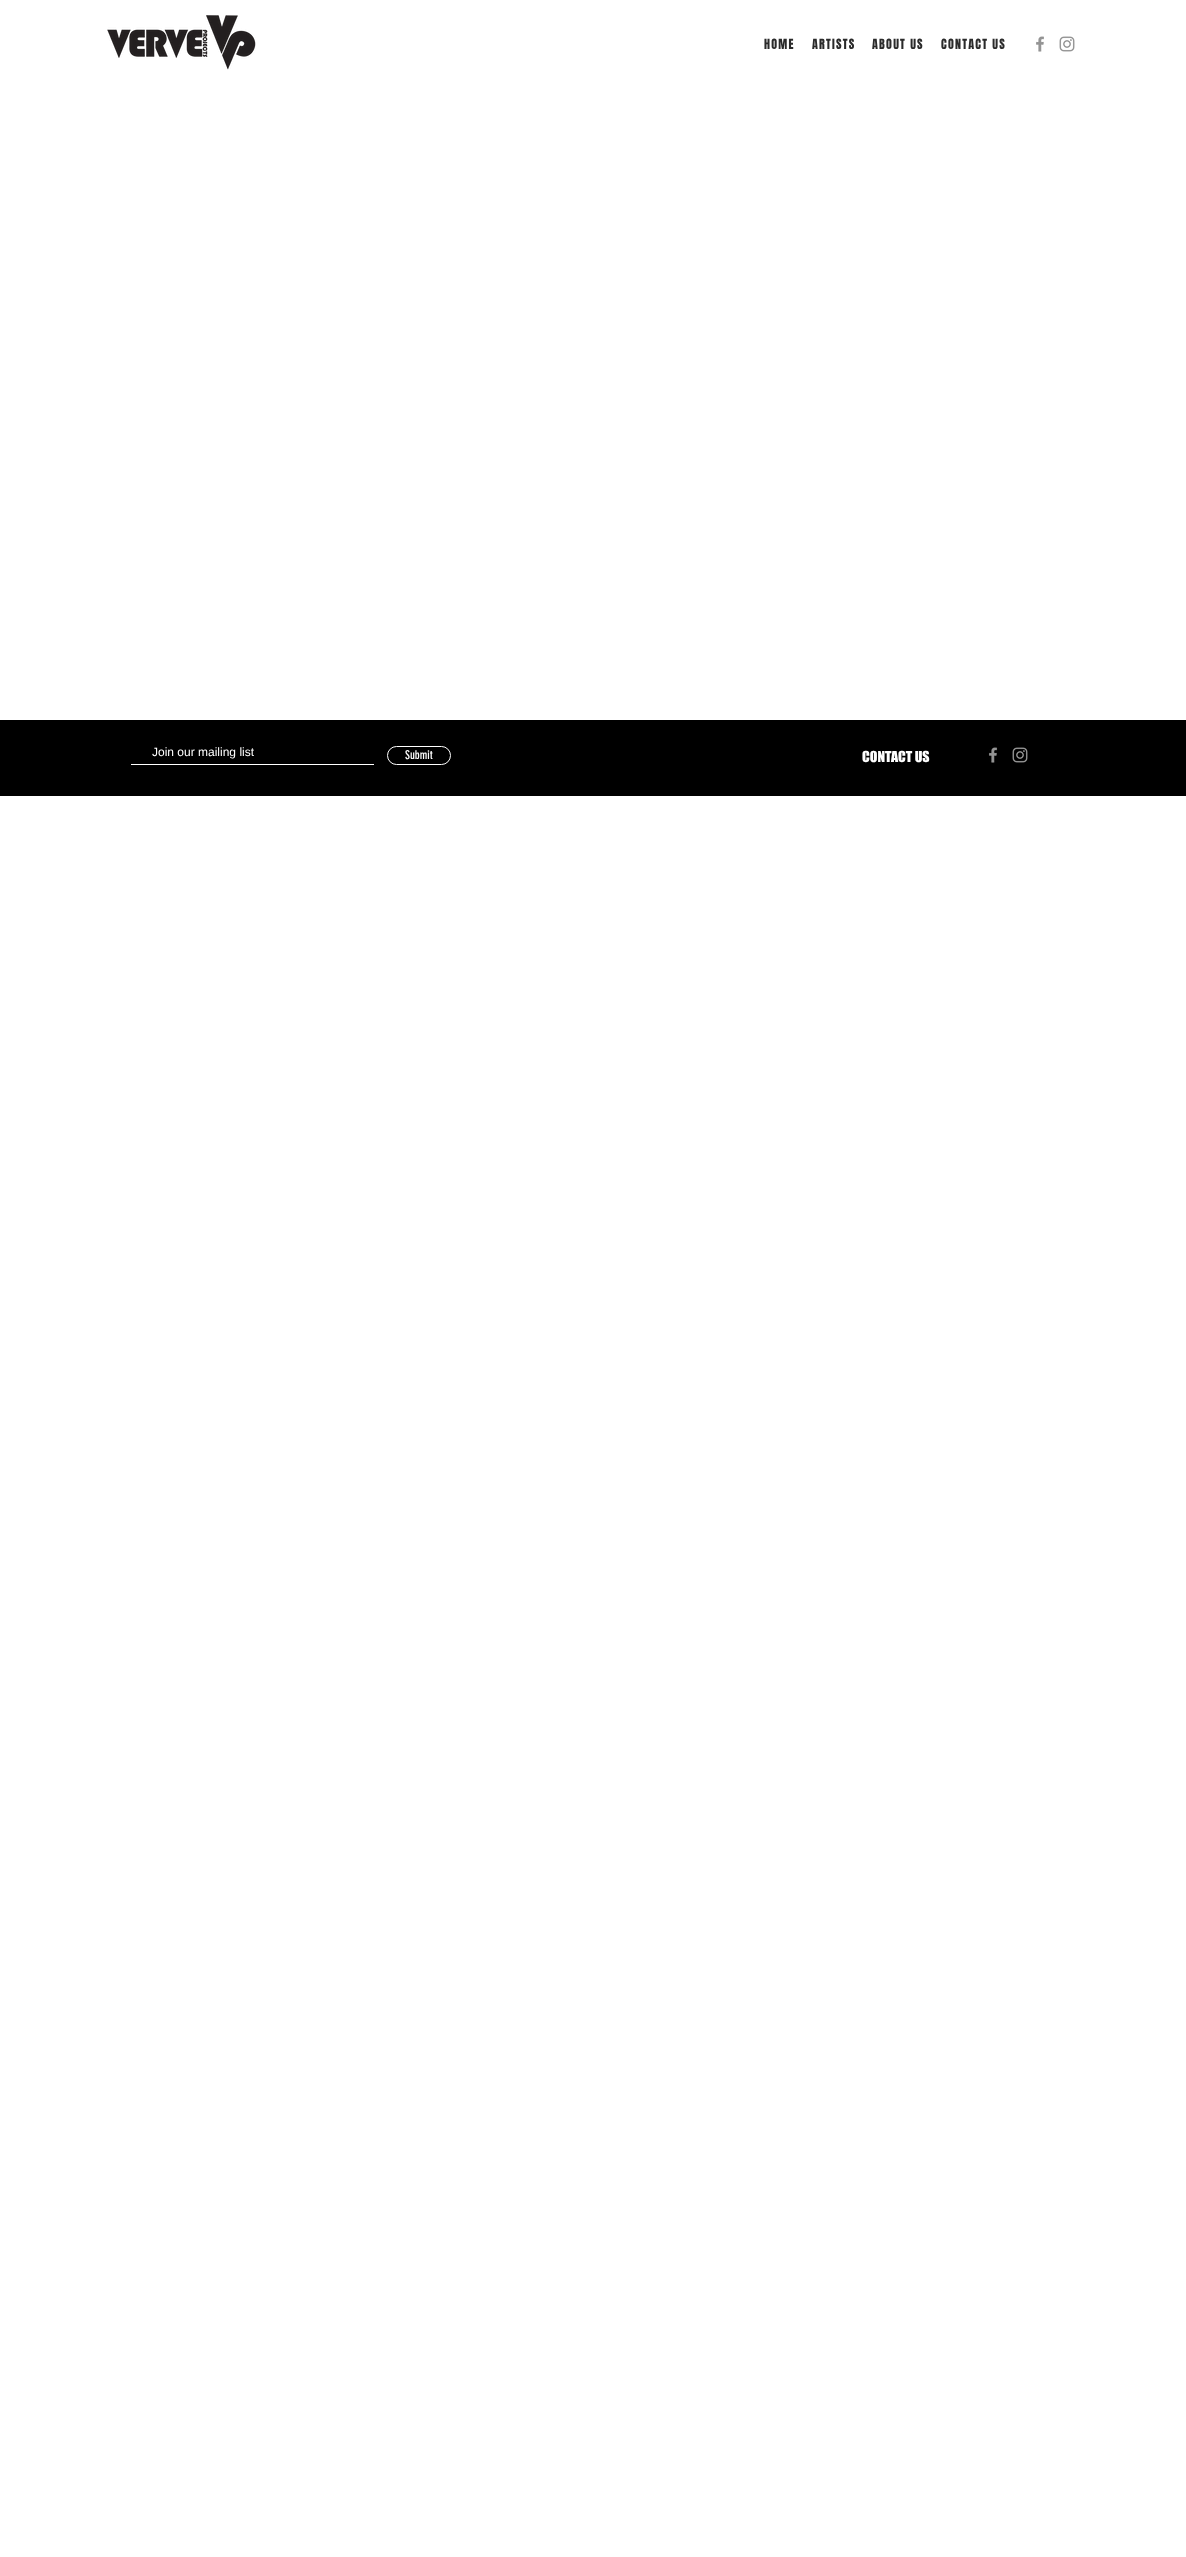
<svg xmlns="http://www.w3.org/2000/svg" width="1186" height="2557">
<style>
.a{font:12px Anton;letter-spacing:1.25px;fill:#2a2a2a}
.b{font:12px Liberation Sans;fill:#fff}
.c{font:12px 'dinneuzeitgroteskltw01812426';fill:#fff}
.d{font:14px 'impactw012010';fill:#fff}
</style>
<rect width="100%" height="100%" fill="#fff"/>
<image href="1.png" x="107" y="15" width="149" height="55"/>
<image href="2.png" x="1036" y="36" width="8" height="16"/>
<image href="3.png" x="1059" y="36" width="16" height="16"/>
<path fill="#000" d="M0 720h1186v76H0z"/>
<path fill="#fff" d="M131 764h243v1H131z"/>
<rect fill="none" stroke="#fff" x="387.5" y="746.5" width="63" height="18" rx="9"/>
<image href="4.png" x="988" y="747" width="10" height="16"/>
<image href="5.png" x="1012" y="747" width="16" height="16"/>
<text class="a" x="764" y="49">HOME</text>
<text class="a" x="812" y="49">ARTISTS</text>
<text class="a" x="872" y="49">ABOUT US</text>
<text class="a" x="941" y="49">CONTACT US</text>
<text class="b" x="152" y="756">Join our mailing list</text>
<text class="c" x="405" y="759">Submit</text>
<text class="d" x="862" y="762">CONTACT US</text>
</svg>
